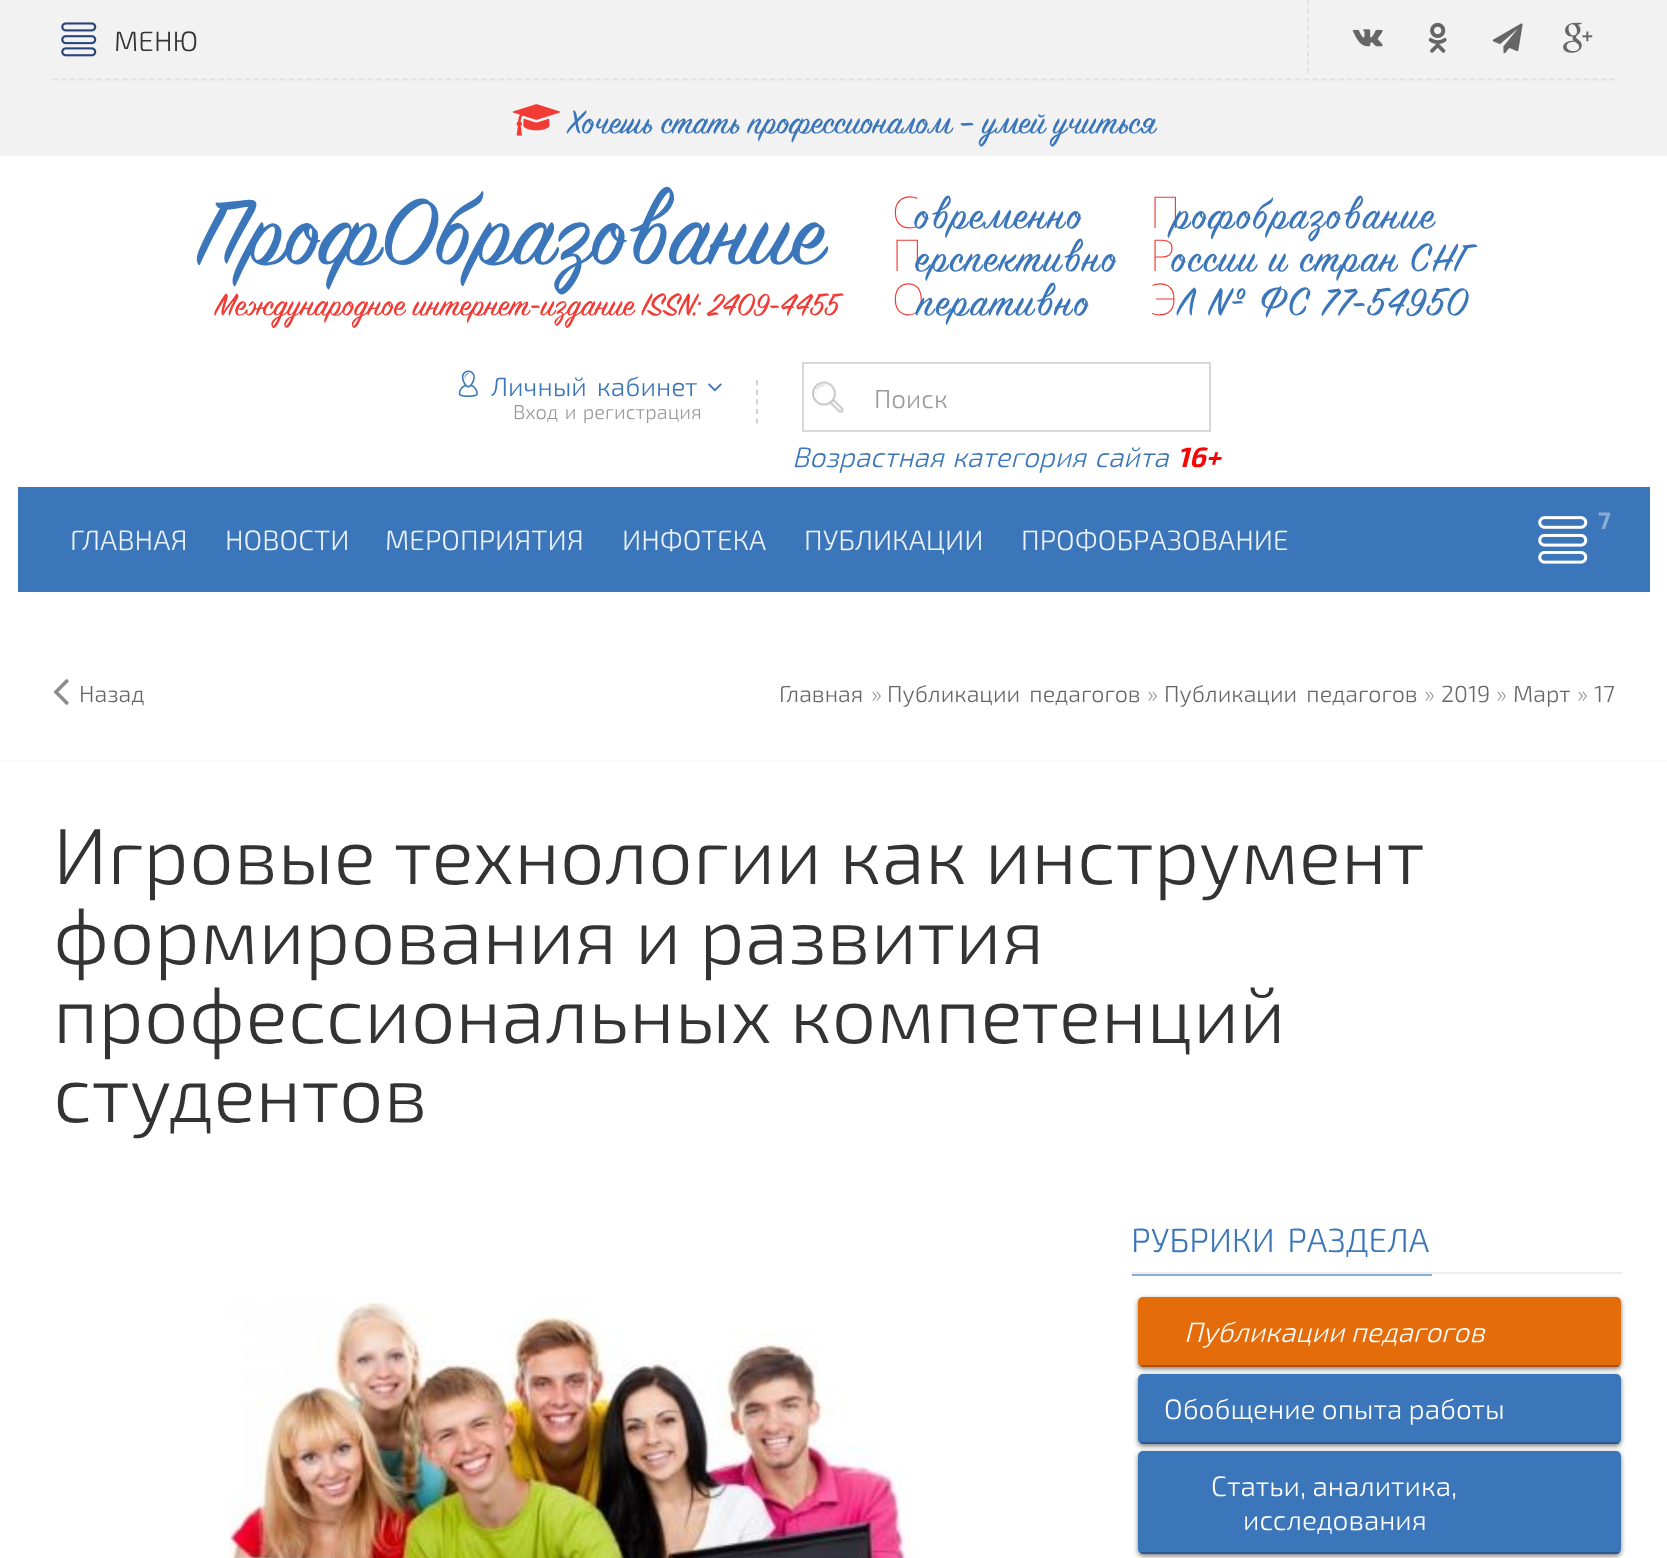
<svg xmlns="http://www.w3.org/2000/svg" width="1667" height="1558">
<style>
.a{font:300 28px 'Exo 2';fill:#333}
.b{font:36.75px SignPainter;fill:#3b76ba}
.c{font:102.75px SignPainter;fill:#3b76ba}
.d{font:35px SignPainter;fill:#f23b35}
.e{font:100 43.75px Noto Sans;letter-spacing:1.75px;fill:#f23b35}
.f{font:43.75px SignPainter;letter-spacing:1.75px;fill:#3b76ba}
.g{font:300 26.5px 'Exo 2';fill:#3b76ba}
.h{font:300 20px 'Exo 2';fill:#999}
.i{font:300 26px 'Exo 2';fill:#999}
.j{font:italic 300 28px 'Exo 2';fill:#3b76ba}
.k{font:italic bold 28px 'Exo 2';fill:#f40707}
.l{font:bold 24px 'Exo 2';fill:#89add6}
.m{font:300 28px 'Exo 2';fill:#ebf1f8}
.n{font:300 23.25px 'Exo 2';fill:#666}
.o{font:300 23.25px 'Exo 2';fill:#999}
.p{font:300 79.3px 'Exo 2';fill:#333}
.q{font:300 33.5px 'Exo 2';fill:#3b76ba}
.r{font:italic 300 28px 'Exo 2';fill:#fff}
.s{font:300 28px 'Exo 2';fill:#fff}
</style>
<rect width="100%" height="100%" fill="#fff"/>
<path fill="#f2f2f2" d="M0 0h1667v156H0z"/>
<image href="1.png" x="61" y="22" width="36" height="35"/>
<path fill="none" stroke="#e0e0e0" stroke-width="1.8" stroke-dasharray="5.25 3.29" d="M1308 0v73.5"/>
<image href="2.png" x="1352" y="29" width="31" height="18"/>
<image href="3.png" x="1428" y="22" width="19" height="31"/>
<image href="4.png" x="1492" y="23" width="31" height="31"/>
<image href="5.png" x="1563" y="22" width="30" height="31"/>
<path fill="none" stroke="#e0e0e0" stroke-width="1.8" stroke-dasharray="5.25 3.5" d="M52.5 79.5h1562.5"/>
<image href="6.png" x="512" y="104" width="48" height="32"/>
<image href="7.png" x="458" y="370" width="20" height="28"/>
<image href="8.png" x="708" y="383" width="14" height="9"/>
<path fill="none" stroke="#ccc" stroke-width="1.8" stroke-dasharray="5.25 4.38" d="M757 380v43.5"/>
<path fill="none" stroke="#d8d8d8" stroke-width="2" d="M803 363h407v68H803z"/>
<image href="9.png" x="812" y="381" width="32" height="33"/>
<path fill="#3b76ba" d="M18 487h1632v105H18z"/>
<image href="10.png" x="1538" y="516" width="50" height="48"/>
<path fill="#fafafa" d="M0 760h1667v2H0z"/>
<image href="11.png" x="53" y="679" width="16" height="26"/>
<image href="12.png" x="229" y="1302" width="684" height="256"/>
<path fill="#eee" d="M1132 1272h490v2H1132z"/>
<path fill="#89add6" d="M1132 1274h300v2H1132z"/>
<path fill="#fafafa" d="M1134 1367h487v2H1134z"/>
<rect fill="#00000080" filter="blur(2.5px)" x="1138" y="1299" width="483" height="70" rx="5"/>
<rect fill="#e46c0a" x="1138" y="1297" width="483" height="70" rx="5"/>
<path fill="#00000040" d="M1141 1365h478v2H1141z"/>
<path fill="#fafafa" d="M1134 1444h487v2H1134z"/>
<rect fill="#00000080" filter="blur(2.5px)" x="1138" y="1376" width="483" height="70" rx="5"/>
<rect fill="#3b76ba" x="1138" y="1374" width="483" height="70" rx="5"/>
<path fill="#00000040" d="M1141 1442h478v2H1141z"/>
<path fill="#fafafa" d="M1134 1554h487v2H1134z"/>
<rect fill="#00000080" filter="blur(2.5px)" x="1138" y="1453" width="483" height="103" rx="5"/>
<rect fill="#3b76ba" x="1138" y="1451" width="483" height="103" rx="5"/>
<path fill="#00000040" d="M1141 1552h478v2H1141z"/>
<text class="a" x="114" y="51">МЕНЮ</text>
<text class="b" x="567" y="133">Хочешь стать профессионалом – умей учиться</text>
<text class="c" x="195" y="263">ПрофОбразование</text>
<text class="d" x="215" y="315">Международное интернет-издание ISSN: 2409-4455</text>
<text class="e" x="892" y="228">С</text>
<text class="f" x="914" y="228">овременно</text>
<text class="e" x="892" y="271">П</text>
<text class="f" x="915" y="271">ерспективно</text>
<text class="e" x="892" y="315">О</text>
<text class="f" x="917" y="315">перативно</text>
<text class="e" x="1150" y="228">П</text>
<text class="f" x="1173" y="228">рофобразование</text>
<text class="e" x="1150" y="271">Р</text>
<text class="f" x="1171" y="271">оссии и стран СНГ</text>
<text class="e" x="1150" y="315">Э</text>
<text class="f" x="1176" y="315">Л № ФС 77-54950</text>
<text class="g" x="491" y="396" word-spacing="4">Личный кабинет</text>
<text class="h" x="513" y="419" word-spacing="2">Вход и регистрация</text>
<text class="i" x="874" y="408">Поиск</text>
<text class="j" x="792" y="467" word-spacing="2">Возрастная категория сайта</text>
<text class="k" x="1177" y="467">16+</text>
<text class="l" x="1598" y="529">7</text>
<text class="m" x="70" y="550">ГЛАВНАЯ</text>
<text class="m" x="225" y="550">НОВОСТИ</text>
<text class="m" x="385" y="550">МЕРОПРИЯТИЯ</text>
<text class="m" x="622" y="550">ИНФОТЕКА</text>
<text class="m" x="804" y="550">ПУБЛИКАЦИИ</text>
<text class="m" x="1021" y="550">ПРОФОБРАЗОВАНИЕ</text>
<text class="n" x="79" y="702">Назад</text>
<text class="n" x="779" y="702">Главная</text>
<text class="o" x="871" y="702">»</text>
<text class="n" x="887" y="702" word-spacing="4">Публикации педагогов</text>
<text class="o" x="1147" y="702">»</text>
<text class="n" x="1164" y="702" word-spacing="4">Публикации педагогов</text>
<text class="o" x="1424" y="702">»</text>
<text class="n" x="1441" y="702">2019</text>
<text class="o" x="1496" y="702">»</text>
<text class="n" x="1513" y="702">Март</text>
<text class="o" x="1577" y="702">»</text>
<text class="n" x="1594" y="702">17</text>
<text class="p" x="53" y="884">Игровые технологии как инструмент</text>
<text class="p" x="53" y="964">формирования и развития</text>
<text class="p" x="53" y="1043">профессиональных компетенций</text>
<text class="p" x="53" y="1122">студентов</text>
<text class="q" x="1131" y="1252" word-spacing="5">РУБРИКИ РАЗДЕЛА</text>
<text class="r" x="1184" y="1342">Публикации педагогов</text>
<text class="s" x="1164" y="1419">Обобщение опыта работы</text>
<text class="s" x="1211" y="1496">Статьи, аналитика,</text>
<text class="s" x="1243" y="1530">исследования</text>
</svg>
